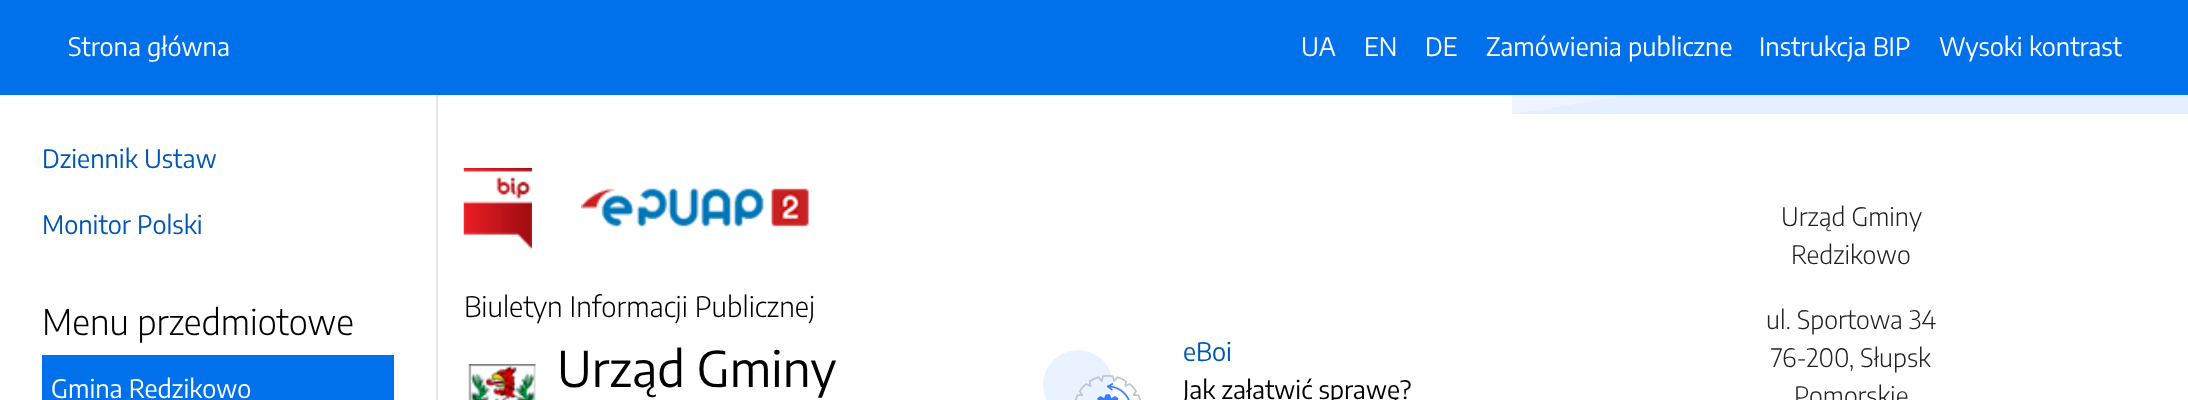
<svg xmlns="http://www.w3.org/2000/svg" width="2188" height="400">
<style>
.a{font:25.25px Encode Sans Condensed;fill:#fff}
.b{font:300 28px Encode Sans Condensed;fill:#000}
.c{font:49px Encode Sans Condensed;fill:#000}
.d{font:25.25px Encode Sans Condensed;fill:#0056b3}
.e{font:25.25px Encode Sans Condensed;fill:#000}
.f{font:300 35px Encode Sans Condensed;fill:#000}
.g{font:300 25.25px Encode Sans Condensed;fill:#222}
</style>
<rect width="100%" height="100%" fill="#fff"/>
<path fill="#e6efff" d="M1513 114h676v-114z"/>
<path fill="#377dff17" d="M1512 114v-68l232 29z"/>
<path fill="#0071eb" d="M0 0h2188v95H0z"/>
<image href="1.png" x="463" y="168" width="69" height="81"/>
<image href="2.png" x="581" y="188" width="228" height="39"/>
<image href="3.png" x="468" y="364" width="68" height="36"/>
<circle fill="#ebf2ff" cx="1078" cy="385" r="35"/>
<image href="4.png" x="1074" y="375" width="67" height="25"/>
<path fill="#e6e6e6" d="M436 95h2v305H436z"/>
<path fill="#0071eb" d="M42 355h352v45H42z"/>
<text class="a" x="68" y="56">Strona główna</text>
<text class="a" x="1301" y="56">UA</text>
<text class="a" x="1364" y="56">EN</text>
<text class="a" x="1425" y="56">DE</text>
<text class="a" x="1486" y="56">Zamówienia publiczne</text>
<text class="a" x="1759" y="56">Instrukcja BIP</text>
<text class="a" x="1939" y="56">Wysoki kontrast</text>
<text class="b" x="464" y="317">Biuletyn Informacji Publicznej</text>
<text class="c" x="557" y="387">Urząd Gminy</text>
<text class="d" x="1183" y="361">eBoi</text>
<text class="e" x="1183" y="399">Jak załatwić sprawę?</text>
<text class="d" x="42" y="168">Dziennik Ustaw</text>
<text class="d" x="42" y="234">Monitor Polski</text>
<text class="f" x="42" y="335">Menu przedmiotowe</text>
<text class="a" x="51" y="398">Gmina Redzikowo</text>
<text class="g" x="1781" y="226">Urząd Gminy</text>
<text class="g" x="1791" y="264">Redzikowo</text>
<text class="g" x="1766" y="329">ul. Sportowa 34</text>
<text class="g" x="1771" y="367">76-200, Słupsk</text>
<text class="g" x="1794" y="405">Pomorskie</text>
</svg>
